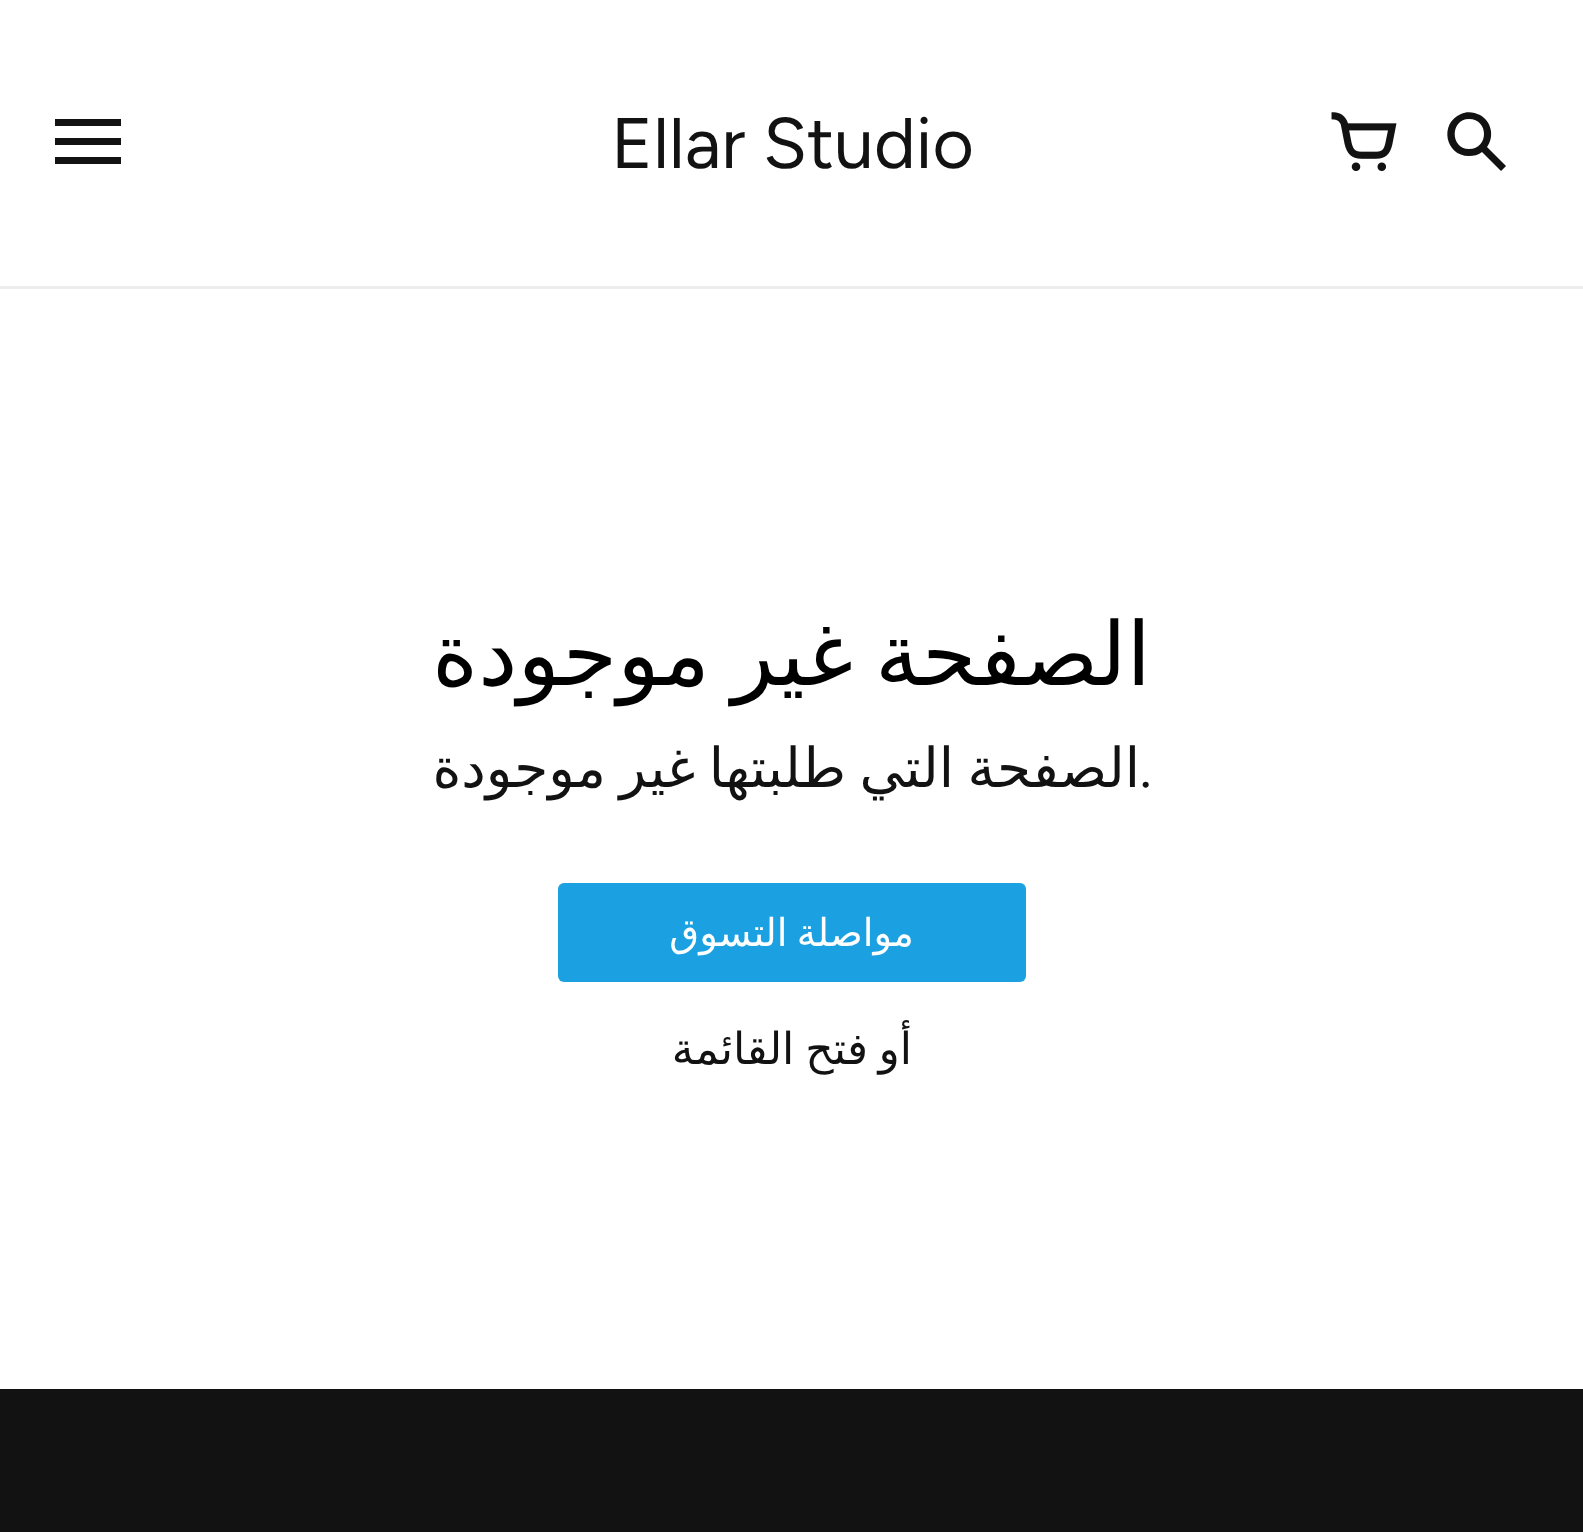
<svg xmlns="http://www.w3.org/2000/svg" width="1583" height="1532">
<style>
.a{font:71.5px Figtree;fill:#121212}
.b{font:88px DejaVu Sans;direction:rtl;fill:#000}
.c{font:55px Figtree;fill:#121212}
.d{font:55px DejaVu Sans;direction:rtl;fill:#121212}
.e{font:38.5px DejaVu Sans;direction:rtl;fill:#fff}
.f{font:44px DejaVu Sans;direction:rtl;fill:#121212}
</style>
<rect width="100%" height="100%" fill="#fff"/>
<path fill="#ecedee" d="M0 286h1583v3H0z"/>
<path fill="#121212" d="M1506 166l-19-19c8-11 4-26-7-32c-6-3-13-4-19-1c-22 9-16 42 8 42c5 0 9-1 13-4l19 19zm-37-17c-19 0-19-30 0-30c20 0 20 30 0 30zm0 0z"/>
<image href="1.png" x="1331" y="112" width="66" height="59"/>
<path fill="#121212" d="M55 119h66v7h-66zm0 19h66v7h-66zm0 19h66v7h-66zm0 0h0z"/>
<rect fill="#1ba1e2" x="558" y="883" width="468" height="99" rx="6"/>
<path fill="#121212" d="M0 1389h1583v143H0z"/>
<text class="a" x="611" y="168">Ellar Studio</text>
<text class="b" x="1151" y="685" word-spacing="-6">الصفحة غير موجودة</text>
<text class="c" x="1140" y="787">.</text>
<text class="d" x="1140" y="787" word-spacing="-4">الصفحة التي طلبتها غير موجودة</text>
<text class="e" x="914" y="946" word-spacing="-3">مواصلة التسوق</text>
<text class="f" x="912" y="1064">أو</text>
<text class="f" x="868" y="1064" word-spacing="-3">فتح القائمة</text>
</svg>
